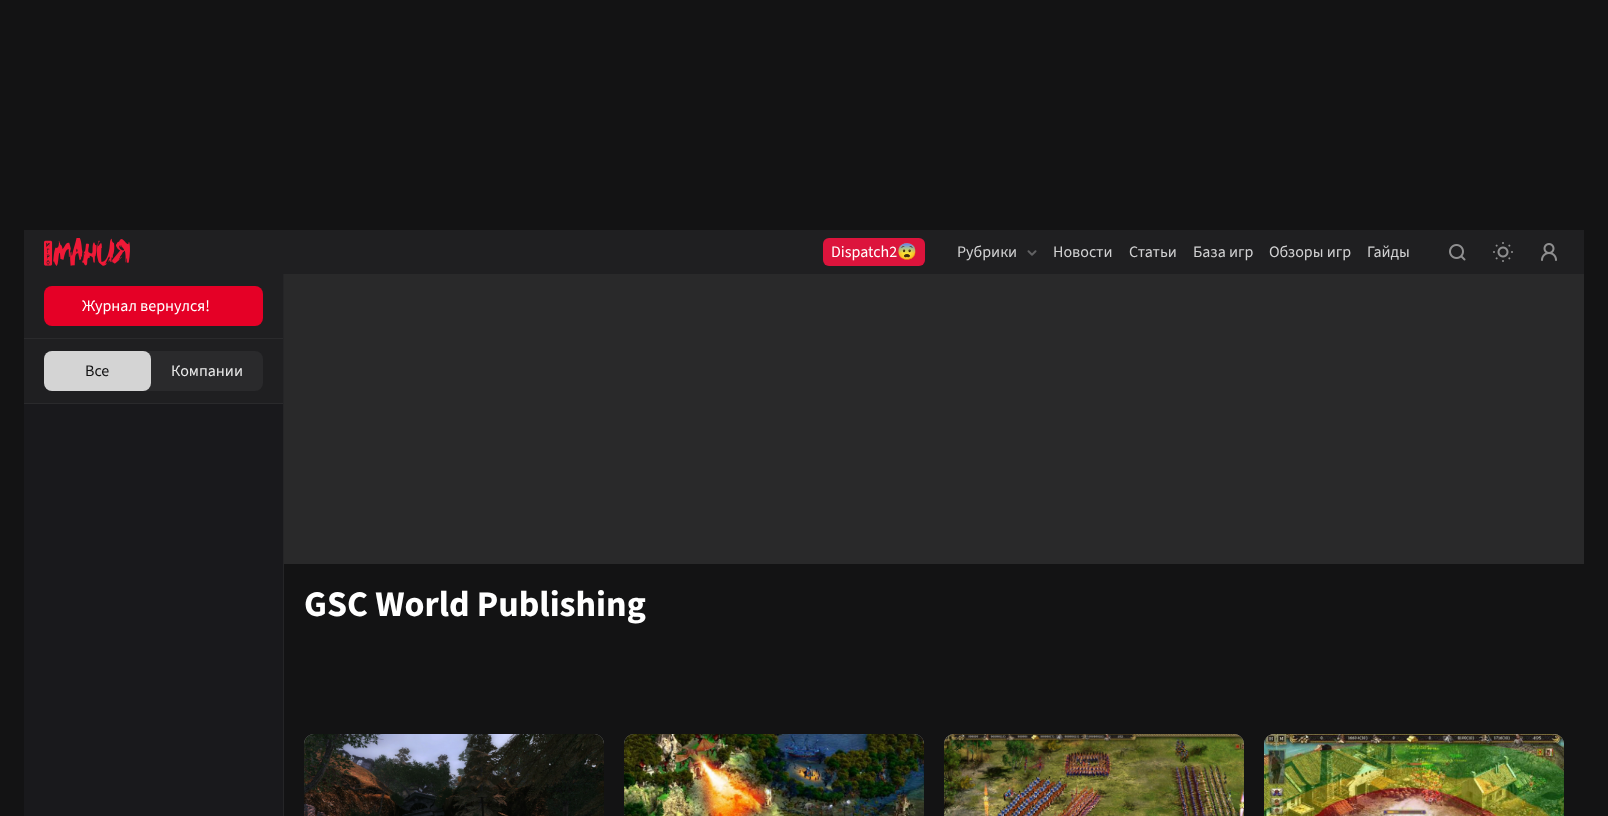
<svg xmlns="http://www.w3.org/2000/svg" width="1608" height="816">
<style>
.a{font:16px 'Source Sans 3';fill:#fff}
.b{font:16px Noto Color Emoji;fill:#fff}
.c{font:16px 'Source Sans 3';fill:#d2d2d3}
.d{font:16px 'Source Sans 3';fill:#111112}
.e{font:16px 'Source Sans 3';fill:#eaeaea}
.f{font:bold 36px 'Source Sans 3';fill:#fff}
</style>
<rect width="100%" height="100%" fill="#131314"/>
<path fill="#1f1f21" d="M24 230h1560v44H24z"/>
<image href="1.png" x="44" y="238" width="86" height="28"/>
<rect fill="#dc143c" x="823" y="238" width="102" height="28" rx="6"/>
<image href="2.png" x="1027" y="250" width="10" height="6"/>
<image href="3.png" x="1449" y="244" width="17" height="17"/>
<image href="4.png" x="1493" y="242" width="20" height="20"/>
<image href="5.png" x="1541" y="243" width="16" height="18"/>
<path fill="#19191c" d="M24 404h259v412H24z"/>
<path fill="#252527" d="M283 274h1v542H283z"/>
<path fill="#1f1f21" d="M24 274h259v64H24z"/>
<path fill="#2a2a2c" d="M24 338h259v1H24z"/>
<rect fill="#e50026" x="44" y="286" width="219" height="40" rx="8"/>
<path fill="#1f1f21" d="M24 339h259v64H24z"/>
<path fill="#2a2a2c" d="M24 403h259v1H24z"/>
<rect fill="#2a2a2c" x="44" y="351" width="219" height="40" rx="8"/>
<rect fill="#ffffffcc" x="44" y="351" width="107" height="40" rx="8"/>
<path fill="#29292a" d="M284 274h1300v290H284z"/>
<path fill="#7f7f7f" d="M314 734h280c5.5 0 10 4.5 10 10v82h-300v-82c0-5.5 4.5-10 10-10z"/>
<image href="6.png" x="304" y="734" width="300" height="82"/>
<path fill="#7f7f7f" d="M634 734h280c5.5 0 10 4.5 10 10v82h-300v-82c0-5.5 4.5-10 10-10z"/>
<image href="7.png" x="624" y="734" width="300" height="82"/>
<path fill="#7f7f7f" d="M954 734h280c5.5 0 10 4.5 10 10v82h-300v-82c0-5.5 4.5-10 10-10z"/>
<image href="8.png" x="944" y="734" width="300" height="82"/>
<path fill="#7f7f7f" d="M1274 734h280c5.5 0 10 4.5 10 10v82h-300v-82c0-5.5 4.5-10 10-10z"/>
<image href="9.png" x="1264" y="734" width="300" height="82"/>
<text class="a" x="831" y="257">Dispatch2</text>
<text class="b" x="897" y="257">😨</text>
<text class="c" x="957" y="257">Рубрики</text>
<text class="c" x="1053" y="257">Новости</text>
<text class="c" x="1129" y="257">Статьи</text>
<text class="c" x="1193" y="257">База игр</text>
<text class="c" x="1269" y="257">Обзоры игр</text>
<text class="c" x="1367" y="257">Гайды</text>
<text class="a" x="82" y="311">Журнал вернулся!</text>
<text class="d" x="85" y="376">Все</text>
<text class="e" x="171" y="376">Компании</text>
<text class="f" x="304" y="616">GSC World Publishing</text>
</svg>
